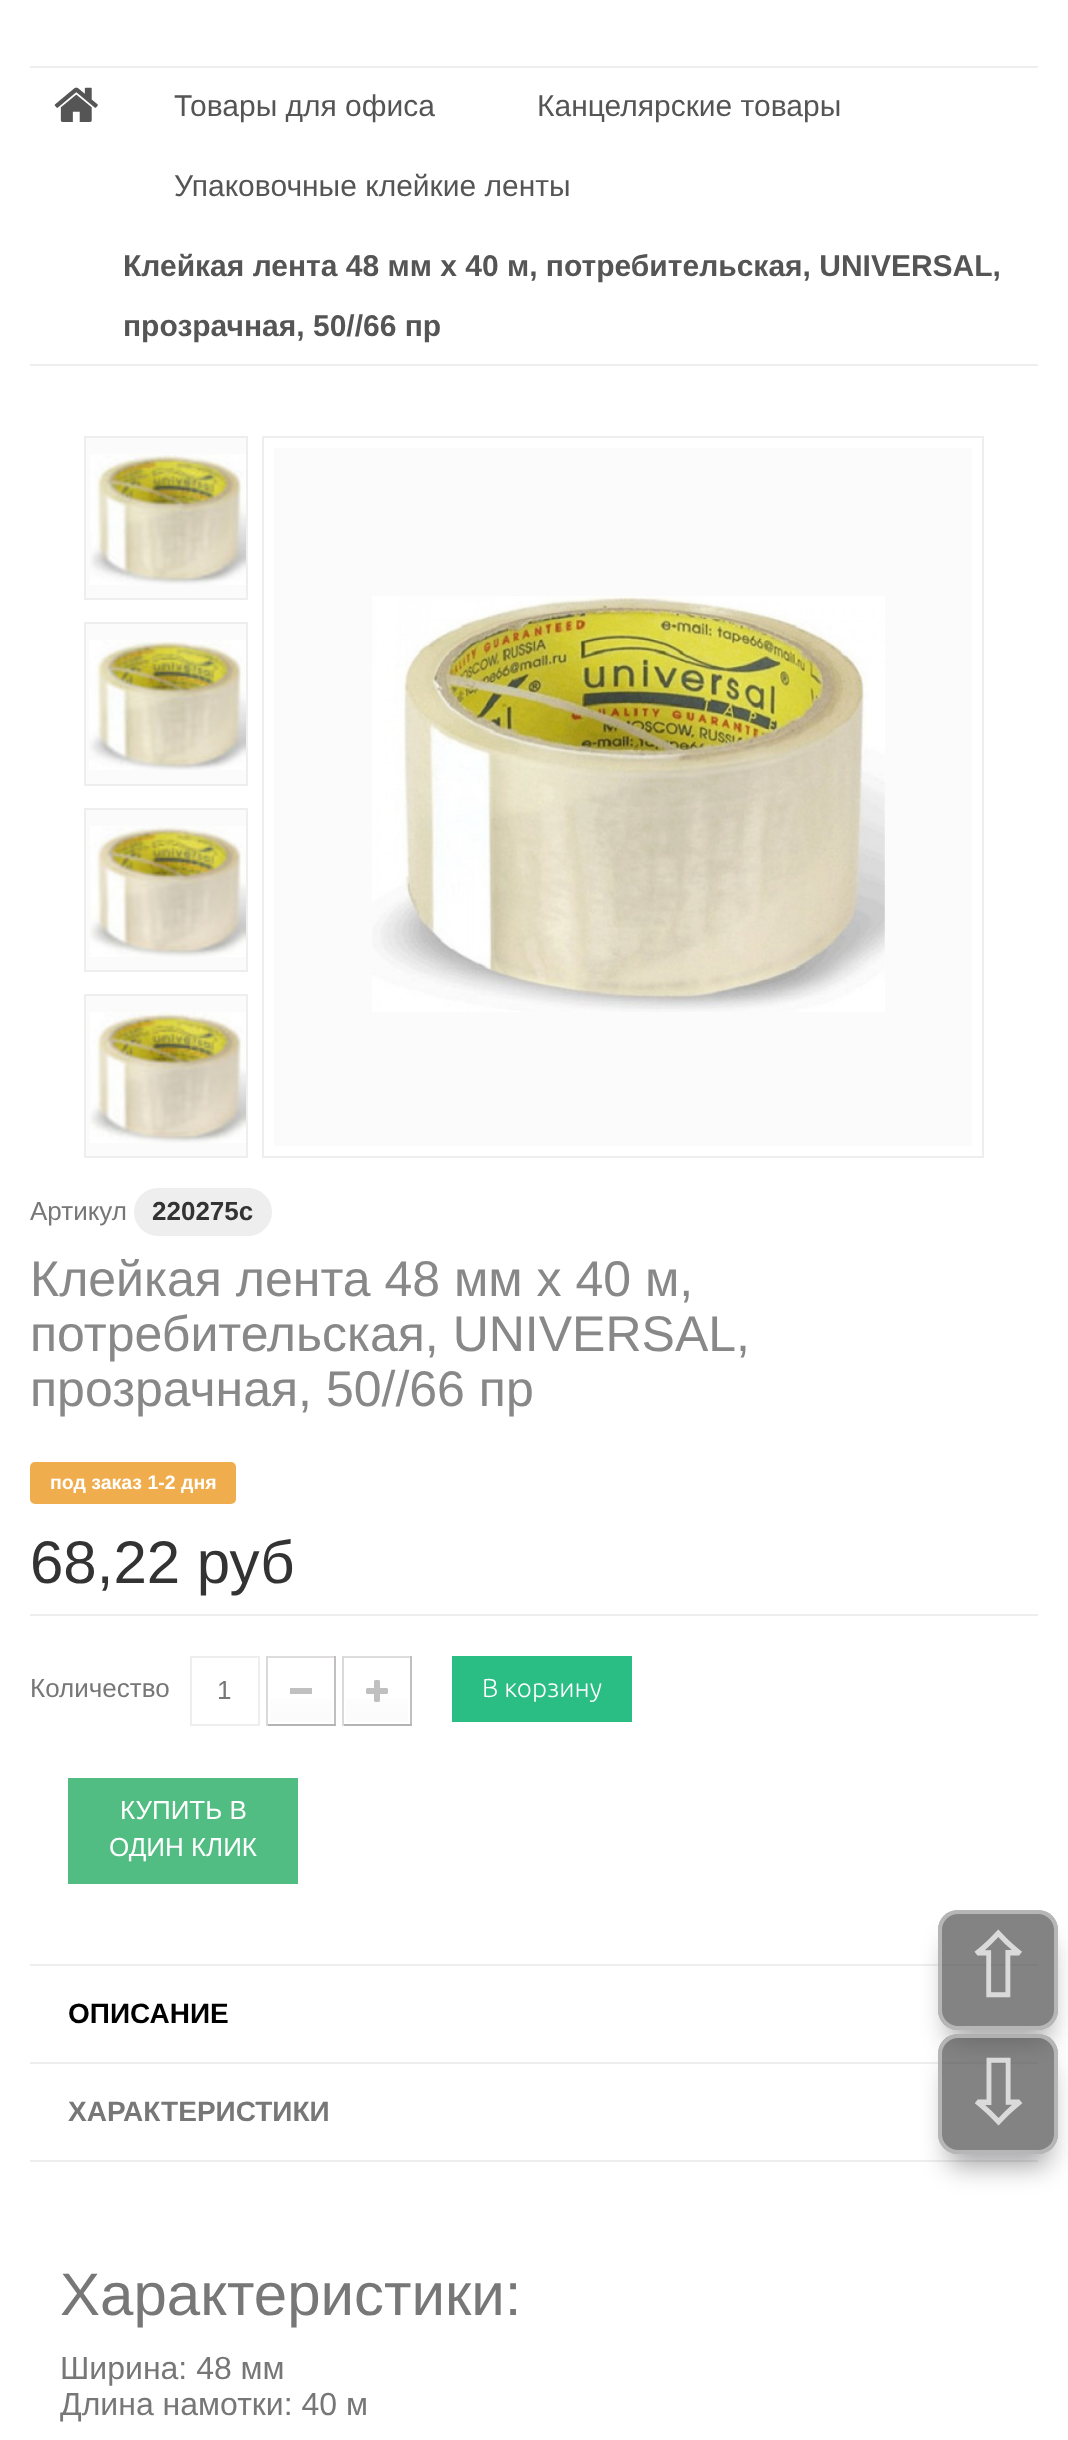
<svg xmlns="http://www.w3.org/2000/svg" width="1068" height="2440">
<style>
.a{font:30px Liberation Sans;fill:#555}
.b{font:bold 30px Liberation Sans;fill:#555}
.c{font:26px Liberation Sans;fill:#777}
.d{font:bold 26px Liberation Sans;fill:#333}
.e{font:50px Liberation Sans;fill:#888}
.f{font:bold 19.5px Liberation Sans;fill:#fff}
.g{font:60px Liberation Sans;fill:#333}
.h{font:300 26px Ubuntu;fill:#fff}
.i{font:26px Liberation Sans;fill:#fff}
.j{font:bold 28px Liberation Sans;fill:#000}
.k{font:bold 28px Liberation Sans;fill:#777}
.l{font:60px Liberation Sans;fill:#777}
.m{font:32px Liberation Sans;fill:#777}
.n{font:90px FreeSans;fill:#dadada}
</style>
<defs>
<linearGradient id="g1" gradientUnits="userSpaceOnUse" x1="301" y1="1660" x2="301" y2="1722"><stop offset="0" stop-color="#fff"/><stop offset="1" stop-color="#fbfbfb"/></linearGradient>
<linearGradient id="g2" gradientUnits="userSpaceOnUse" x1="377" y1="1660" x2="377" y2="1722"><stop offset="0" stop-color="#fff"/><stop offset="1" stop-color="#fbfbfb"/></linearGradient>
<clipPath id="clip1"><path d="M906 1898h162v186h-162zm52 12h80c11 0 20 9 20 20v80c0 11-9 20-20 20h-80c-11 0-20-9-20-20v-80c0-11 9-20 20-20z" clip-rule="evenodd"/></clipPath>
<clipPath id="clip2"><path d="M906 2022h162v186h-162zm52 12h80c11 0 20 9 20 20v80c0 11-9 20-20 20h-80c-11 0-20-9-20-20v-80c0-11 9-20 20-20z" clip-rule="evenodd"/></clipPath>
</defs>
<rect width="100%" height="100%" fill="#fff"/>
<path fill="#eee" d="M30 66h1008v2H30z"/>
<path fill="#eee" d="M30 364h1008v2H30z"/>
<image href="1.png" x="54" y="87" width="44" height="35"/>
<path fill="#fbfbfb" stroke="#eee" stroke-width="2" d="M85 437h162v162H85z"/>
<image href="2.png" x="90" y="454" width="156" height="131"/>
<path fill="#fbfbfb" stroke="#eee" stroke-width="2" d="M85 623h162v162H85z"/>
<image href="3.png" x="89" y="640" width="157" height="130"/>
<path fill="#fbfbfb" stroke="#eee" stroke-width="2" d="M85 809h162v162H85z"/>
<image href="4.png" x="90" y="826" width="156" height="131"/>
<path fill="#fbfbfb" stroke="#eee" stroke-width="2" d="M85 995h162v162H85z"/>
<image href="5.png" x="90" y="1012" width="156" height="131"/>
<path fill="none" stroke="#eee" stroke-width="2" d="M263 437h720v720H263z"/>
<path fill="#fbfbfb" d="M274 448h698v698H274z"/>
<image href="6.png" x="372" y="596" width="513" height="416"/>
<rect fill="#eee" x="134" y="1188" width="138" height="48" rx="24"/>
<rect fill="#f0ad4e" x="30" y="1462" width="206" height="42" rx="5"/>
<path fill="#eee" d="M30 1614h1008v2H30z"/>
<path fill="none" stroke="#eee" stroke-width="2" d="M191 1657h68v68H191z"/>
<path fill="#dedcdc" d="M266 1656h70v2H266z"/>
<path fill="#c1bfbf" d="M334 1656h2v70H334z"/>
<path fill="#b5b4b4" d="M266 1724h70v2H266z"/>
<path fill="#dad8d8" d="M266 1656h2v70H266z"/>
<path fill="url(#g1)" d="M270 1699h62v23H270z"/>
<path fill="#c0c0c0" d="M290 1688h22v6H290z"/>
<path fill="#dedcdc" d="M342 1656h70v2H342z"/>
<path fill="#c1bfbf" d="M410 1656h2v70H410z"/>
<path fill="#b5b4b4" d="M342 1724h70v2H342z"/>
<path fill="#dad8d8" d="M342 1656h2v70H342z"/>
<path fill="url(#g2)" d="M346 1699h62v23H346z"/>
<image href="7.png" x="366" y="1680" width="22" height="22"/>
<path fill="#2abd84" d="M452 1656h180v66H452z"/>
<path fill="#52bd83" d="M68 1778h230v106H68z"/>
<path fill="#eee" d="M30 1964h1008v2H30z"/>
<path fill="#eee" d="M30 2062h1008v2H30z"/>
<path fill="#eee" d="M30 2160h1008v2H30z"/>
<g clip-path="url(#clip1)">
<rect fill="#00000659" filter="blur(13.5px)" x="948" y="1940" width="102" height="102" rx="12"/>
</g>
<rect fill="#4f4f4fb3" x="938" y="1910" width="120" height="120" rx="20"/>
<rect fill="none" stroke="#ccccccb3" stroke-width="4" x="940" y="1912" width="116" height="116" rx="18"/>
<g clip-path="url(#clip2)">
<rect fill="#00000659" filter="blur(13.5px)" x="948" y="2064" width="102" height="102" rx="12"/>
</g>
<rect fill="#4f4f4fb3" x="938" y="2034" width="120" height="120" rx="20"/>
<rect fill="none" stroke="#ccccccb3" stroke-width="4" x="940" y="2036" width="116" height="116" rx="18"/>
<text class="a" x="174" y="116">Товары для офиса</text>
<text class="a" x="537" y="116">Канцелярские товары</text>
<text class="a" x="174" y="196">Упаковочные клейкие ленты</text>
<text class="b" x="123" y="276">Клейкая лента 48 мм х 40 м, потребительская, UNIVERSAL,</text>
<text class="b" x="123" y="336">прозрачная, 50//66 пр</text>
<text class="c" x="30" y="1220">Артикул</text>
<text class="d" x="152" y="1220">220275с</text>
<text class="e" x="30" y="1296">Клейкая лента 48 мм х 40 м,</text>
<text class="e" x="30" y="1351">потребительская, UNIVERSAL,</text>
<text class="e" x="30" y="1406">прозрачная, 50//66 пр</text>
<text class="f" x="50" y="1489">под заказ 1-2 дня</text>
<text class="g" x="30" y="1583">68,22 руб</text>
<text class="c" x="30" y="1697">Количество</text>
<text class="c" x="217" y="1699">1</text>
<text class="h" x="482" y="1697">В корзину</text>
<text class="i" x="120" y="1819">КУПИТЬ В</text>
<text class="i" x="109" y="1856">ОДИН КЛИК</text>
<text class="j" x="68" y="2023">ОПИСАНИЕ</text>
<text class="k" x="68" y="2121">ХАРАКТЕРИСТИКИ</text>
<text class="l" x="60" y="2315">Характеристики:</text>
<text class="m" x="60" y="2379">Ширина: 48 мм</text>
<text class="m" x="60" y="2415">Длина намотки: 40 м</text>
<text class="n" x="973" y="1996">⇧</text>
<text class="n" x="973" y="2120">⇩</text>
</svg>
